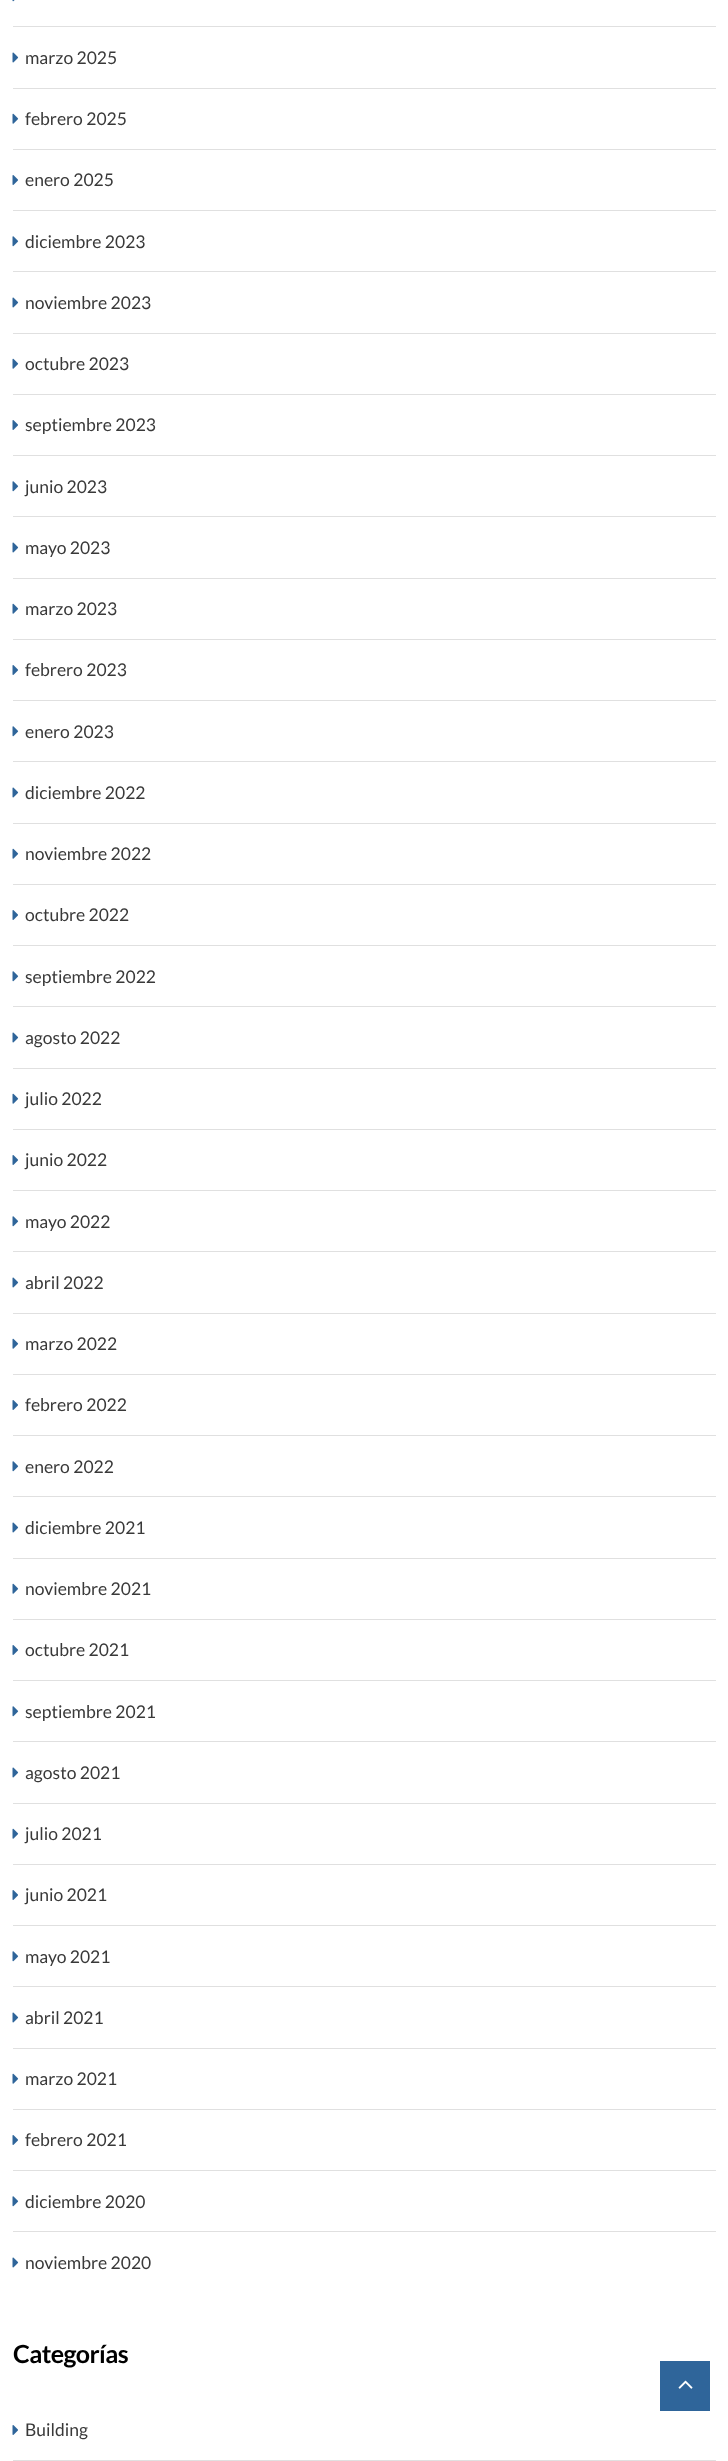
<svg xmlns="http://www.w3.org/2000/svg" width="728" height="2461">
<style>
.a{font:17.5px Lato;fill:#393939}
.b{font:bold 25px Lato;letter-spacing:-0.6px;fill:#000}
</style>
<rect width="100%" height="100%" fill="#fff"/>
<image href="1.png" x="12" y="0" width="3" height="2"/>
<path fill="#e0e0e0" d="M13 26h703v1H13z"/>
<image href="2.png" x="12" y="52" width="7" height="11"/>
<path fill="#e0e0e0" d="M13 88h703v1H13z"/>
<image href="3.png" x="12" y="113" width="7" height="11"/>
<path fill="#e0e0e0" d="M13 149h703v1H13z"/>
<image href="4.png" x="12" y="175" width="6" height="10"/>
<path fill="#e0e0e0" d="M13 210h703v1H13z"/>
<image href="5.png" x="12" y="236" width="7" height="11"/>
<path fill="#e0e0e0" d="M13 271h703v1H13z"/>
<image href="2.png" x="12" y="297" width="7" height="11"/>
<path fill="#e0e0e0" d="M13 333h703v1H13z"/>
<image href="3.png" x="12" y="358" width="7" height="11"/>
<path fill="#e0e0e0" d="M13 394h703v1H13z"/>
<image href="4.png" x="12" y="420" width="6" height="10"/>
<path fill="#e0e0e0" d="M13 455h703v1H13z"/>
<image href="5.png" x="12" y="481" width="7" height="11"/>
<path fill="#e0e0e0" d="M13 516h703v1H13z"/>
<image href="2.png" x="12" y="542" width="7" height="11"/>
<path fill="#e0e0e0" d="M13 578h703v1H13z"/>
<image href="3.png" x="12" y="603" width="7" height="11"/>
<path fill="#e0e0e0" d="M13 639h703v1H13z"/>
<image href="4.png" x="12" y="665" width="6" height="10"/>
<path fill="#e0e0e0" d="M13 700h703v1H13z"/>
<image href="5.png" x="12" y="726" width="7" height="11"/>
<path fill="#e0e0e0" d="M13 761h703v1H13z"/>
<image href="2.png" x="12" y="787" width="7" height="11"/>
<path fill="#e0e0e0" d="M13 823h703v1H13z"/>
<image href="3.png" x="12" y="848" width="7" height="11"/>
<path fill="#e0e0e0" d="M13 884h703v1H13z"/>
<image href="4.png" x="12" y="910" width="6" height="10"/>
<path fill="#e0e0e0" d="M13 945h703v1H13z"/>
<image href="5.png" x="12" y="971" width="7" height="11"/>
<path fill="#e0e0e0" d="M13 1006h703v1H13z"/>
<image href="2.png" x="12" y="1032" width="7" height="11"/>
<path fill="#e0e0e0" d="M13 1068h703v1H13z"/>
<image href="3.png" x="12" y="1093" width="7" height="11"/>
<path fill="#e0e0e0" d="M13 1129h703v1H13z"/>
<image href="4.png" x="12" y="1155" width="6" height="10"/>
<path fill="#e0e0e0" d="M13 1190h703v1H13z"/>
<image href="5.png" x="12" y="1216" width="7" height="11"/>
<path fill="#e0e0e0" d="M13 1251h703v1H13z"/>
<image href="2.png" x="12" y="1277" width="7" height="11"/>
<path fill="#e0e0e0" d="M13 1313h703v1H13z"/>
<image href="3.png" x="12" y="1338" width="7" height="11"/>
<path fill="#e0e0e0" d="M13 1374h703v1H13z"/>
<image href="4.png" x="12" y="1400" width="6" height="10"/>
<path fill="#e0e0e0" d="M13 1435h703v1H13z"/>
<image href="5.png" x="12" y="1461" width="7" height="11"/>
<path fill="#e0e0e0" d="M13 1496h703v1H13z"/>
<image href="2.png" x="12" y="1522" width="7" height="11"/>
<path fill="#e0e0e0" d="M13 1558h703v1H13z"/>
<image href="3.png" x="12" y="1583" width="7" height="11"/>
<path fill="#e0e0e0" d="M13 1619h703v1H13z"/>
<image href="4.png" x="12" y="1645" width="6" height="10"/>
<path fill="#e0e0e0" d="M13 1680h703v1H13z"/>
<image href="5.png" x="12" y="1706" width="7" height="11"/>
<path fill="#e0e0e0" d="M13 1741h703v1H13z"/>
<image href="2.png" x="12" y="1767" width="7" height="11"/>
<path fill="#e0e0e0" d="M13 1803h703v1H13z"/>
<image href="3.png" x="12" y="1828" width="7" height="11"/>
<path fill="#e0e0e0" d="M13 1864h703v1H13z"/>
<image href="4.png" x="12" y="1890" width="6" height="10"/>
<path fill="#e0e0e0" d="M13 1925h703v1H13z"/>
<image href="5.png" x="12" y="1951" width="7" height="11"/>
<path fill="#e0e0e0" d="M13 1986h703v1H13z"/>
<image href="2.png" x="12" y="2012" width="7" height="11"/>
<path fill="#e0e0e0" d="M13 2048h703v1H13z"/>
<image href="3.png" x="12" y="2073" width="7" height="11"/>
<path fill="#e0e0e0" d="M13 2109h703v1H13z"/>
<image href="4.png" x="12" y="2135" width="6" height="10"/>
<path fill="#e0e0e0" d="M13 2170h703v1H13z"/>
<image href="5.png" x="12" y="2196" width="7" height="11"/>
<path fill="#e0e0e0" d="M13 2231h703v1H13z"/>
<image href="2.png" x="12" y="2257" width="7" height="11"/>
<image href="4.png" x="12" y="2425" width="6" height="10"/>
<path fill="#e0e0e0" d="M13 2460h703v1H13z"/>
<path fill="#2f659a" d="M660 2361h50v50H660z"/>
<image href="6.png" x="678" y="2380" width="15" height="9"/>
<text class="a" x="25" y="64">marzo 2025</text>
<text class="a" x="25" y="125">febrero 2025</text>
<text class="a" x="25" y="186">enero 2025</text>
<text class="a" x="25" y="248">diciembre 2023</text>
<text class="a" x="25" y="309">noviembre 2023</text>
<text class="a" x="25" y="370">octubre 2023</text>
<text class="a" x="25" y="431">septiembre 2023</text>
<text class="a" x="25" y="493">junio 2023</text>
<text class="a" x="25" y="554">mayo 2023</text>
<text class="a" x="25" y="615">marzo 2023</text>
<text class="a" x="25" y="676">febrero 2023</text>
<text class="a" x="25" y="738">enero 2023</text>
<text class="a" x="25" y="799">diciembre 2022</text>
<text class="a" x="25" y="860">noviembre 2022</text>
<text class="a" x="25" y="921">octubre 2022</text>
<text class="a" x="25" y="983">septiembre 2022</text>
<text class="a" x="25" y="1044">agosto 2022</text>
<text class="a" x="25" y="1105">julio 2022</text>
<text class="a" x="25" y="1166">junio 2022</text>
<text class="a" x="25" y="1228">mayo 2022</text>
<text class="a" x="25" y="1289">abril 2022</text>
<text class="a" x="25" y="1350">marzo 2022</text>
<text class="a" x="25" y="1411">febrero 2022</text>
<text class="a" x="25" y="1473">enero 2022</text>
<text class="a" x="25" y="1534">diciembre 2021</text>
<text class="a" x="25" y="1595">noviembre 2021</text>
<text class="a" x="25" y="1656">octubre 2021</text>
<text class="a" x="25" y="1718">septiembre 2021</text>
<text class="a" x="25" y="1779">agosto 2021</text>
<text class="a" x="25" y="1840">julio 2021</text>
<text class="a" x="25" y="1901">junio 2021</text>
<text class="a" x="25" y="1963">mayo 2021</text>
<text class="a" x="25" y="2024">abril 2021</text>
<text class="a" x="25" y="2085">marzo 2021</text>
<text class="a" x="25" y="2146">febrero 2021</text>
<text class="a" x="25" y="2208">diciembre 2020</text>
<text class="a" x="25" y="2269">noviembre 2020</text>
<text class="b" x="13" y="2363">Categorías</text>
<text class="a" x="25" y="2436">Building</text>
</svg>
